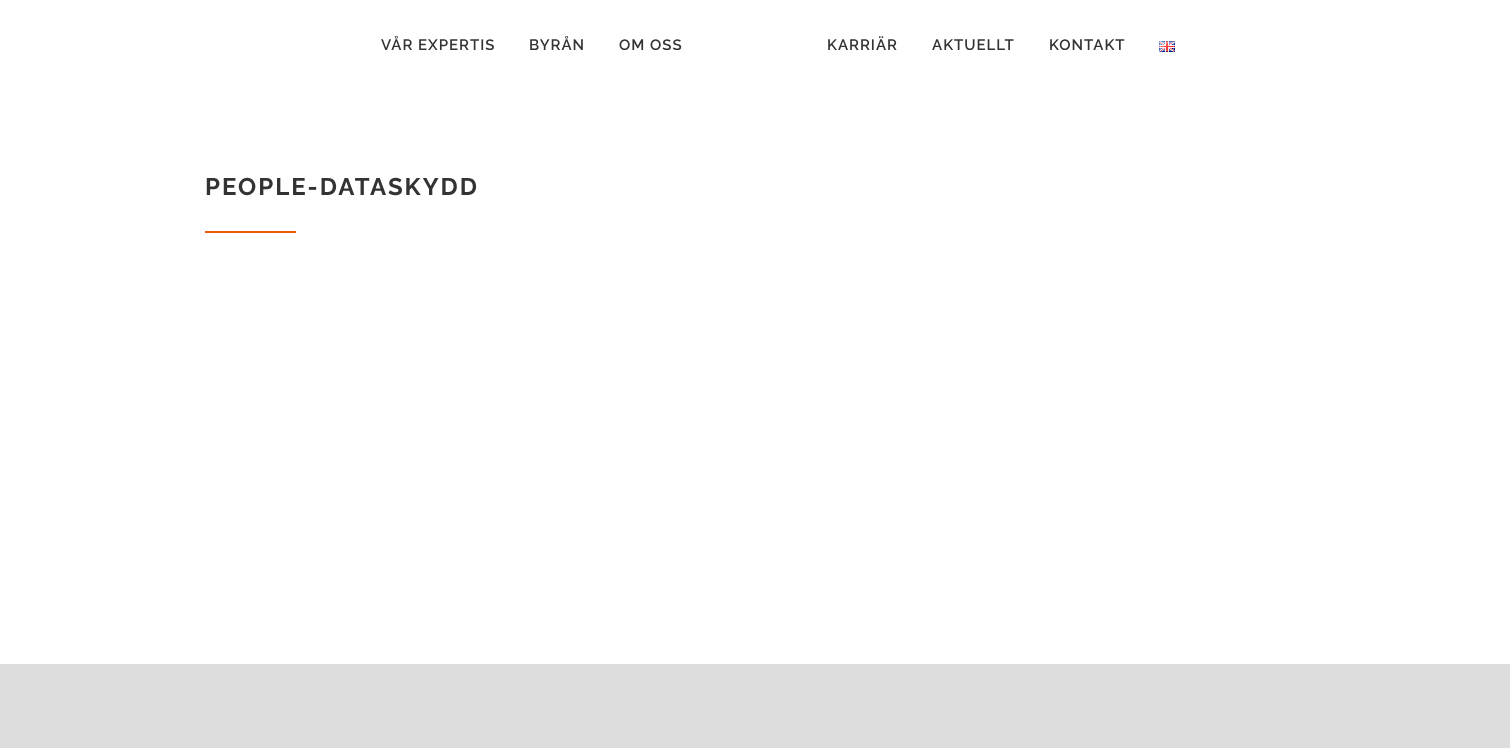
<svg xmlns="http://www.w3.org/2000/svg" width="1510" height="748">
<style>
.a{font:600 15px Raleway;letter-spacing:1px;fill:#333}
.b{font:bold 24px Raleway;letter-spacing:2px;fill:#333}
</style>
<rect width="100%" height="100%" fill="#fff"/>
<image href="1.png" x="1159" y="41" width="16" height="11"/>
<path fill="#ea5b0b" d="M205 231h91v2H205z"/>
<path fill="#ddd" d="M0 664h1510v84H0z"/>
<text class="a" x="381" y="50">VÅR EXPERTIS</text>
<text class="a" x="529" y="50">BYRÅN</text>
<text class="a" x="619" y="50">OM OSS</text>
<text class="a" x="827" y="50">KARRIÄR</text>
<text class="a" x="932" y="50">AKTUELLT</text>
<text class="a" x="1049" y="50">KONTAKT</text>
<text class="b" x="205" y="195">PEOPLE-DATASKYDD</text>
</svg>
